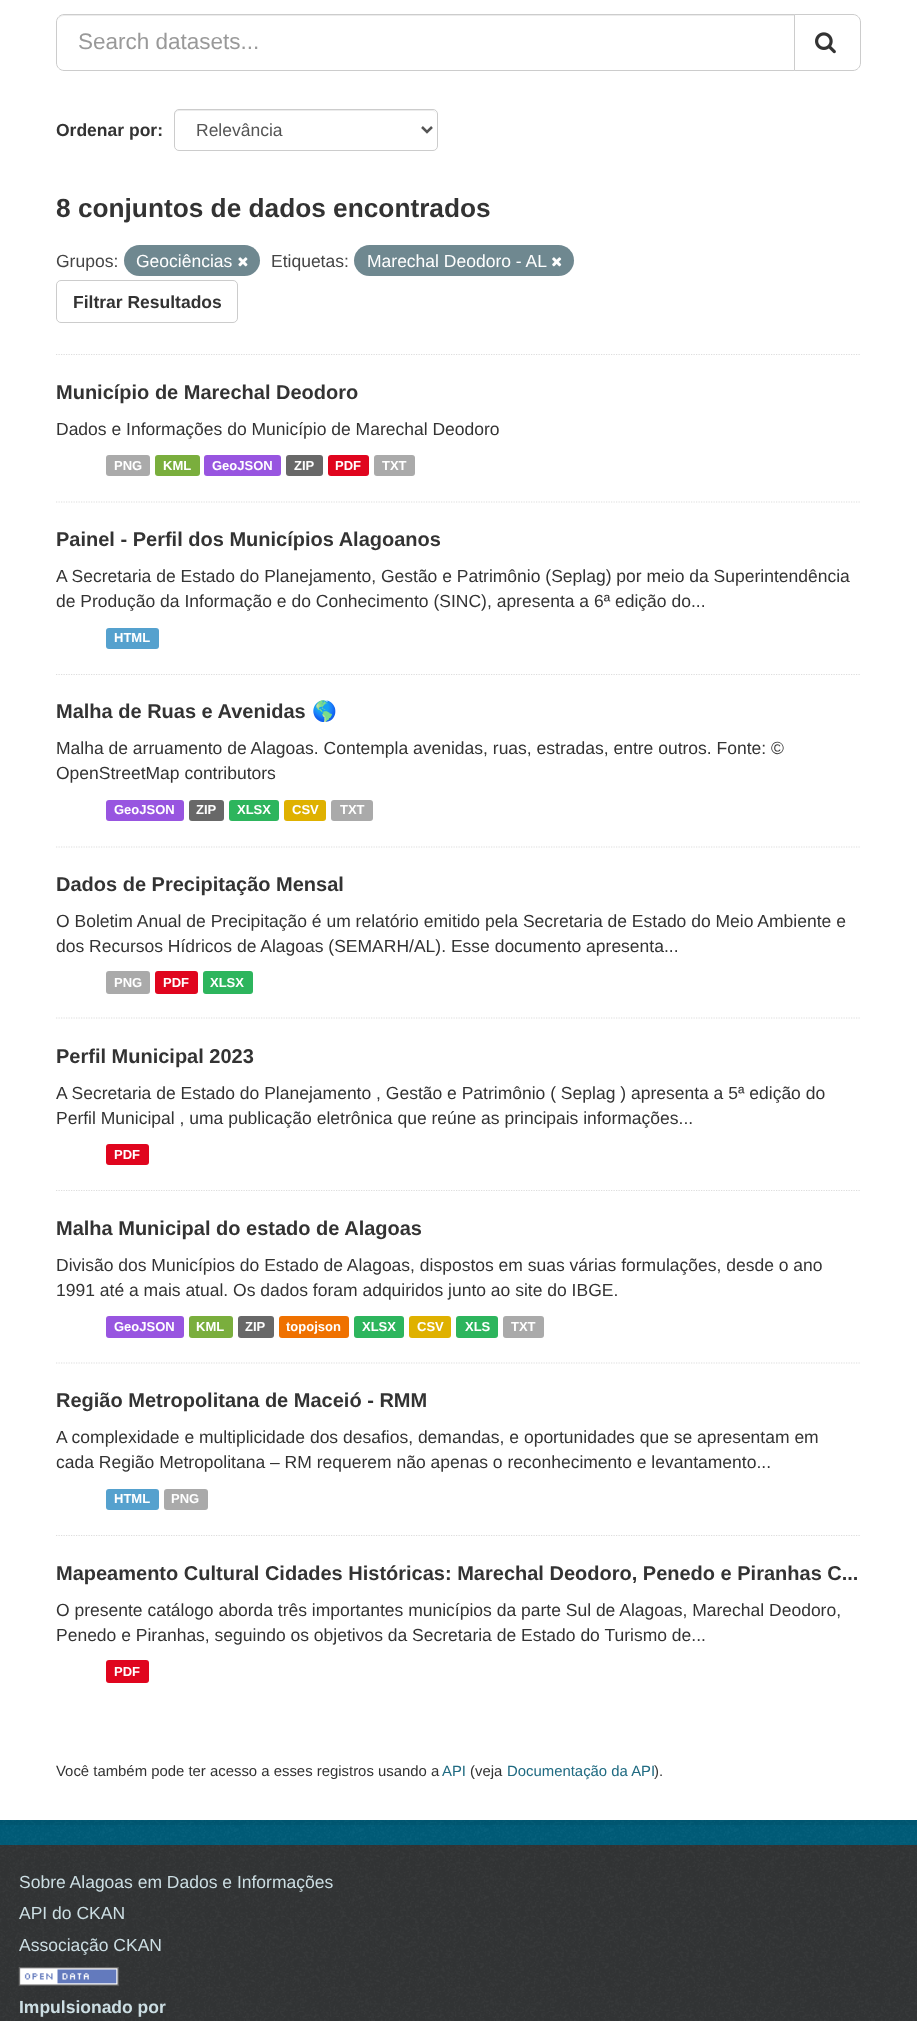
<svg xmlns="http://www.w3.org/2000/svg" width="917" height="2021">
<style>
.a{font:22.5px Liberation Sans;fill:#999}
.b{font:bold 17.5px Liberation Sans;fill:#333}
.c{font:17.5px Liberation Sans;fill:#555}
.d{font:bold 26.25px Liberation Sans;fill:#333}
.e{font:17.5px Liberation Sans;fill:#444}
.f{font:17.5px Liberation Sans;fill:#fff}
.g{font:bold 20px Liberation Sans;fill:#333}
.h{font:17.5px Liberation Sans;fill:#333}
.i{font:bold 13px Liberation Sans;fill:#fff}
.j{font:bold 20px Noto Color Emoji;fill:#333}
.k{font:14.9px Liberation Sans;fill:#333}
.l{font:14.9px Liberation Sans;fill:#206b82}
.m{font:17.5px Liberation Sans;fill:#ccdee3}
.n{font:bold 17.5px Liberation Sans;fill:#ccdee3}
</style>
<rect width="100%" height="100%" fill="#005d7a"/>
<image href="1.png" x="0" y="1820" width="917" height="25"/>
<path fill="none" stroke="#0000000d" stroke-width="5" d="M-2.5 -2.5h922v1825H-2.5z"/>
<path fill="#fff" d="M0 0h917v1820H0z"/>
<path fill="none" stroke="#ddd" stroke-width="1.2" stroke-dasharray="1.25 1.25" d="M56 354.5h805"/>
<path fill="#ececec" d="M64 16h730v-1h-730c-4 0-6 3-6 7c0-3 2-6 6-6z"/>
<path fill="none" stroke="#ccc" d="M64 14.5h730.5v56h-730.5c-4 0-7.5-3.5-7.5-7.5v-41c0-4 3.5-7.5 7.5-7.5z"/>
<path fill="#fff" stroke="#ccc" d="M794.5 14.5h58.5c4 0 7.5 3.5 7.5 7.5v41c0 4-3.5 7.5-7.5 7.5h-58.5z"/>
<image href="2.png" x="815" y="32" width="21" height="22"/>
<path fill="#ececec" d="M179 111h253c3 0 4 2 4 4v-1c0-2-2-4-4-4h-253c-2 0-4 2-4 4v1c0-2 2-4 4-4z"/>
<rect fill="none" stroke="#ccc" x="174.5" y="109.5" width="263" height="41" rx="4.5"/>
<path fill="none" stroke="#555" stroke-width="2.5" d="M422 127l5 5l5-5"/>
<rect fill="#6f8890" x="124" y="245" width="136" height="31" rx="15.5"/>
<image href="3.png" x="238" y="257" width="10" height="10"/>
<rect fill="#6f8890" x="354" y="245" width="220" height="31" rx="15.5"/>
<image href="4.png" x="552" y="257" width="10" height="10"/>
<rect fill="none" stroke="#ccc" x="56.5" y="280.5" width="181" height="42" rx="4.5"/>
<path fill="none" stroke="#ddd" stroke-width="1.2" stroke-dasharray="1.25 1.25" d="M56 502h805"/>
<rect fill="#aaa" x="106" y="455" width="44" height="21" rx="3"/>
<rect fill="#7aae3d" x="155" y="455" width="45" height="21" rx="3"/>
<rect fill="#9855e0" x="204" y="455" width="77" height="21" rx="3"/>
<rect fill="#686868" x="286" y="455" width="37" height="21" rx="3"/>
<rect fill="#e0051e" x="328" y="455" width="41" height="21" rx="3"/>
<rect fill="#aaa" x="374" y="455" width="41" height="21" rx="3"/>
<path fill="none" stroke="#ddd" stroke-width="1.2" stroke-dasharray="1.25 1.25" d="M56 674.5h805"/>
<rect fill="#55a1ce" x="106" y="628" width="53" height="21" rx="3"/>
<path fill="none" stroke="#ddd" stroke-width="1.2" stroke-dasharray="1.25 1.25" d="M56 847h805"/>
<rect fill="#9855e0" x="106" y="800" width="78" height="21" rx="3"/>
<rect fill="#686868" x="189" y="800" width="35" height="21" rx="3"/>
<rect fill="#2db55d" x="229" y="800" width="50" height="21" rx="3"/>
<rect fill="#dfb100" x="284" y="800" width="42" height="21" rx="3"/>
<rect fill="#aaa" x="331" y="800" width="42" height="21" rx="3"/>
<path fill="none" stroke="#ddd" stroke-width="1.2" stroke-dasharray="1.25 1.25" d="M56 1018h805"/>
<rect fill="#aaa" x="106" y="971" width="44" height="23" rx="3"/>
<rect fill="#e0051e" x="155" y="971" width="43" height="23" rx="3"/>
<rect fill="#2db55d" x="203" y="971" width="50" height="23" rx="3"/>
<path fill="none" stroke="#ddd" stroke-width="1.2" stroke-dasharray="1.25 1.25" d="M56 1190.5h805"/>
<rect fill="#e0051e" x="106" y="1144" width="43" height="21" rx="3"/>
<path fill="none" stroke="#ddd" stroke-width="1.2" stroke-dasharray="1.25 1.25" d="M56 1363h805"/>
<rect fill="#9855e0" x="106" y="1316" width="78" height="22" rx="3"/>
<rect fill="#7aae3d" x="189" y="1316" width="44" height="22" rx="3"/>
<rect fill="#686868" x="238" y="1316" width="36" height="22" rx="3"/>
<rect fill="#ef7100" x="279" y="1316" width="70" height="22" rx="3"/>
<rect fill="#2db55d" x="354" y="1316" width="50" height="22" rx="3"/>
<rect fill="#dfb100" x="409" y="1316" width="42" height="22" rx="3"/>
<rect fill="#2db55d" x="456" y="1316" width="42" height="22" rx="3"/>
<rect fill="#aaa" x="503" y="1316" width="41" height="22" rx="3"/>
<path fill="none" stroke="#ddd" stroke-width="1.2" stroke-dasharray="1.25 1.25" d="M56 1535.5h805"/>
<rect fill="#55a1ce" x="106" y="1489" width="53" height="21" rx="3"/>
<rect fill="#aaa" x="164" y="1489" width="44" height="21" rx="3"/>
<rect fill="#e0051e" x="106" y="1660" width="43" height="23" rx="3"/>
<path fill="#333536" d="M0 1845h917v176H0z"/>
<image href="5.png" x="0" y="1845" width="917" height="176"/>
<image href="6.png" x="18" y="1967" width="101" height="19"/>
<text class="a" x="78" y="49">Search datasets...</text>
<text class="b" x="56" y="136">Ordenar por:</text>
<text class="c" x="196" y="136">Relevância</text>
<text class="d" x="56" y="217">8 conjuntos de dados encontrados</text>
<text class="e" x="56" y="267">Grupos:</text>
<text class="f" x="136" y="267">Geociências</text>
<text class="e" x="271" y="267">Etiquetas:</text>
<text class="f" x="367" y="267">Marechal Deodoro - AL</text>
<text class="b" x="73" y="308">Filtrar Resultados</text>
<text class="g" x="56" y="399">Município de Marechal Deodoro</text>
<text class="h" x="56" y="435">Dados e Informações do Município de Marechal Deodoro</text>
<text class="i" x="114" y="470">PNG</text>
<text class="i" x="163" y="470">KML</text>
<text class="i" x="212" y="470">GeoJSON</text>
<text class="i" x="294" y="470">ZIP</text>
<text class="i" x="335" y="470">PDF</text>
<text class="i" x="382" y="470">TXT</text>
<text class="g" x="56" y="546">Painel - Perfil dos Municípios Alagoanos</text>
<text class="h" x="56" y="582">A Secretaria de Estado do Planejamento, Gestão e Patrimônio (Seplag) por meio da Superintendência</text>
<text class="h" x="56" y="607">de Produção da Informação e do Conhecimento (SINC), apresenta a 6ª edição do...</text>
<text class="i" x="114" y="642">HTML</text>
<text class="g" x="56" y="718">Malha de Ruas e Avenidas</text>
<text class="j" x="312" y="718">🌎</text>
<text class="h" x="56" y="754">Malha de arruamento de Alagoas. Contempla avenidas, ruas, estradas, entre outros. Fonte: ©</text>
<text class="h" x="56" y="779">OpenStreetMap contributors</text>
<text class="i" x="114" y="814">GeoJSON</text>
<text class="i" x="196" y="814">ZIP</text>
<text class="i" x="237" y="814">XLSX</text>
<text class="i" x="292" y="814">CSV</text>
<text class="i" x="340" y="814">TXT</text>
<text class="g" x="56" y="891">Dados de Precipitação Mensal</text>
<text class="h" x="56" y="927">O Boletim Anual de Precipitação é um relatório emitido pela Secretaria de Estado do Meio Ambiente e</text>
<text class="h" x="56" y="952">dos Recursos Hídricos de Alagoas (SEMARH/AL). Esse documento apresenta...</text>
<text class="i" x="114" y="987">PNG</text>
<text class="i" x="163" y="987">PDF</text>
<text class="i" x="210" y="987">XLSX</text>
<text class="g" x="56" y="1063">Perfil Municipal 2023</text>
<text class="h" x="56" y="1099">A Secretaria de Estado do Planejamento , Gestão e Patrimônio ( Seplag ) apresenta a 5ª edição do</text>
<text class="h" x="56" y="1124">Perfil Municipal , uma publicação eletrônica que reúne as principais informações...</text>
<text class="i" x="114" y="1159">PDF</text>
<text class="g" x="56" y="1235">Malha Municipal do estado de Alagoas</text>
<text class="h" x="56" y="1271">Divisão dos Municípios do Estado de Alagoas, dispostos em suas várias formulações, desde o ano</text>
<text class="h" x="56" y="1296">1991 até a mais atual. Os dados foram adquiridos junto ao site do IBGE.</text>
<text class="i" x="114" y="1331">GeoJSON</text>
<text class="i" x="196" y="1331">KML</text>
<text class="i" x="245" y="1331">ZIP</text>
<text class="i" x="286" y="1331">topojson</text>
<text class="i" x="362" y="1331">XLSX</text>
<text class="i" x="417" y="1331">CSV</text>
<text class="i" x="465" y="1331">XLS</text>
<text class="i" x="511" y="1331">TXT</text>
<text class="g" x="56" y="1407">Região Metropolitana de Maceió - RMM</text>
<text class="h" x="56" y="1443">A complexidade e multiplicidade dos desafios, demandas, e oportunidades que se apresentam em</text>
<text class="h" x="56" y="1468">cada Região Metropolitana – RM requerem não apenas o reconhecimento e levantamento...</text>
<text class="i" x="114" y="1503">HTML</text>
<text class="i" x="171" y="1503">PNG</text>
<text class="g" x="56" y="1580">Mapeamento Cultural Cidades Históricas: Marechal Deodoro, Penedo e Piranhas C...</text>
<text class="h" x="56" y="1616">O presente catálogo aborda três importantes municípios da parte Sul de Alagoas, Marechal Deodoro,</text>
<text class="h" x="56" y="1641">Penedo e Piranhas, seguindo os objetivos da Secretaria de Estado do Turismo de...</text>
<text class="i" x="114" y="1676">PDF</text>
<text class="k" x="56" y="1776">Você também pode ter acesso a esses registros usando a</text>
<text class="l" x="442" y="1776">API</text>
<text class="k" x="470" y="1776">(veja</text>
<text class="l" x="507" y="1776">Documentação da API</text>
<text class="k" x="654" y="1776">).</text>
<text class="m" x="19" y="1888">Sobre Alagoas em Dados e Informações</text>
<text class="m" x="19" y="1919">API do CKAN</text>
<text class="m" x="19" y="1951">Associação CKAN</text>
<text class="n" x="19" y="2013">Impulsionado por</text>
</svg>
